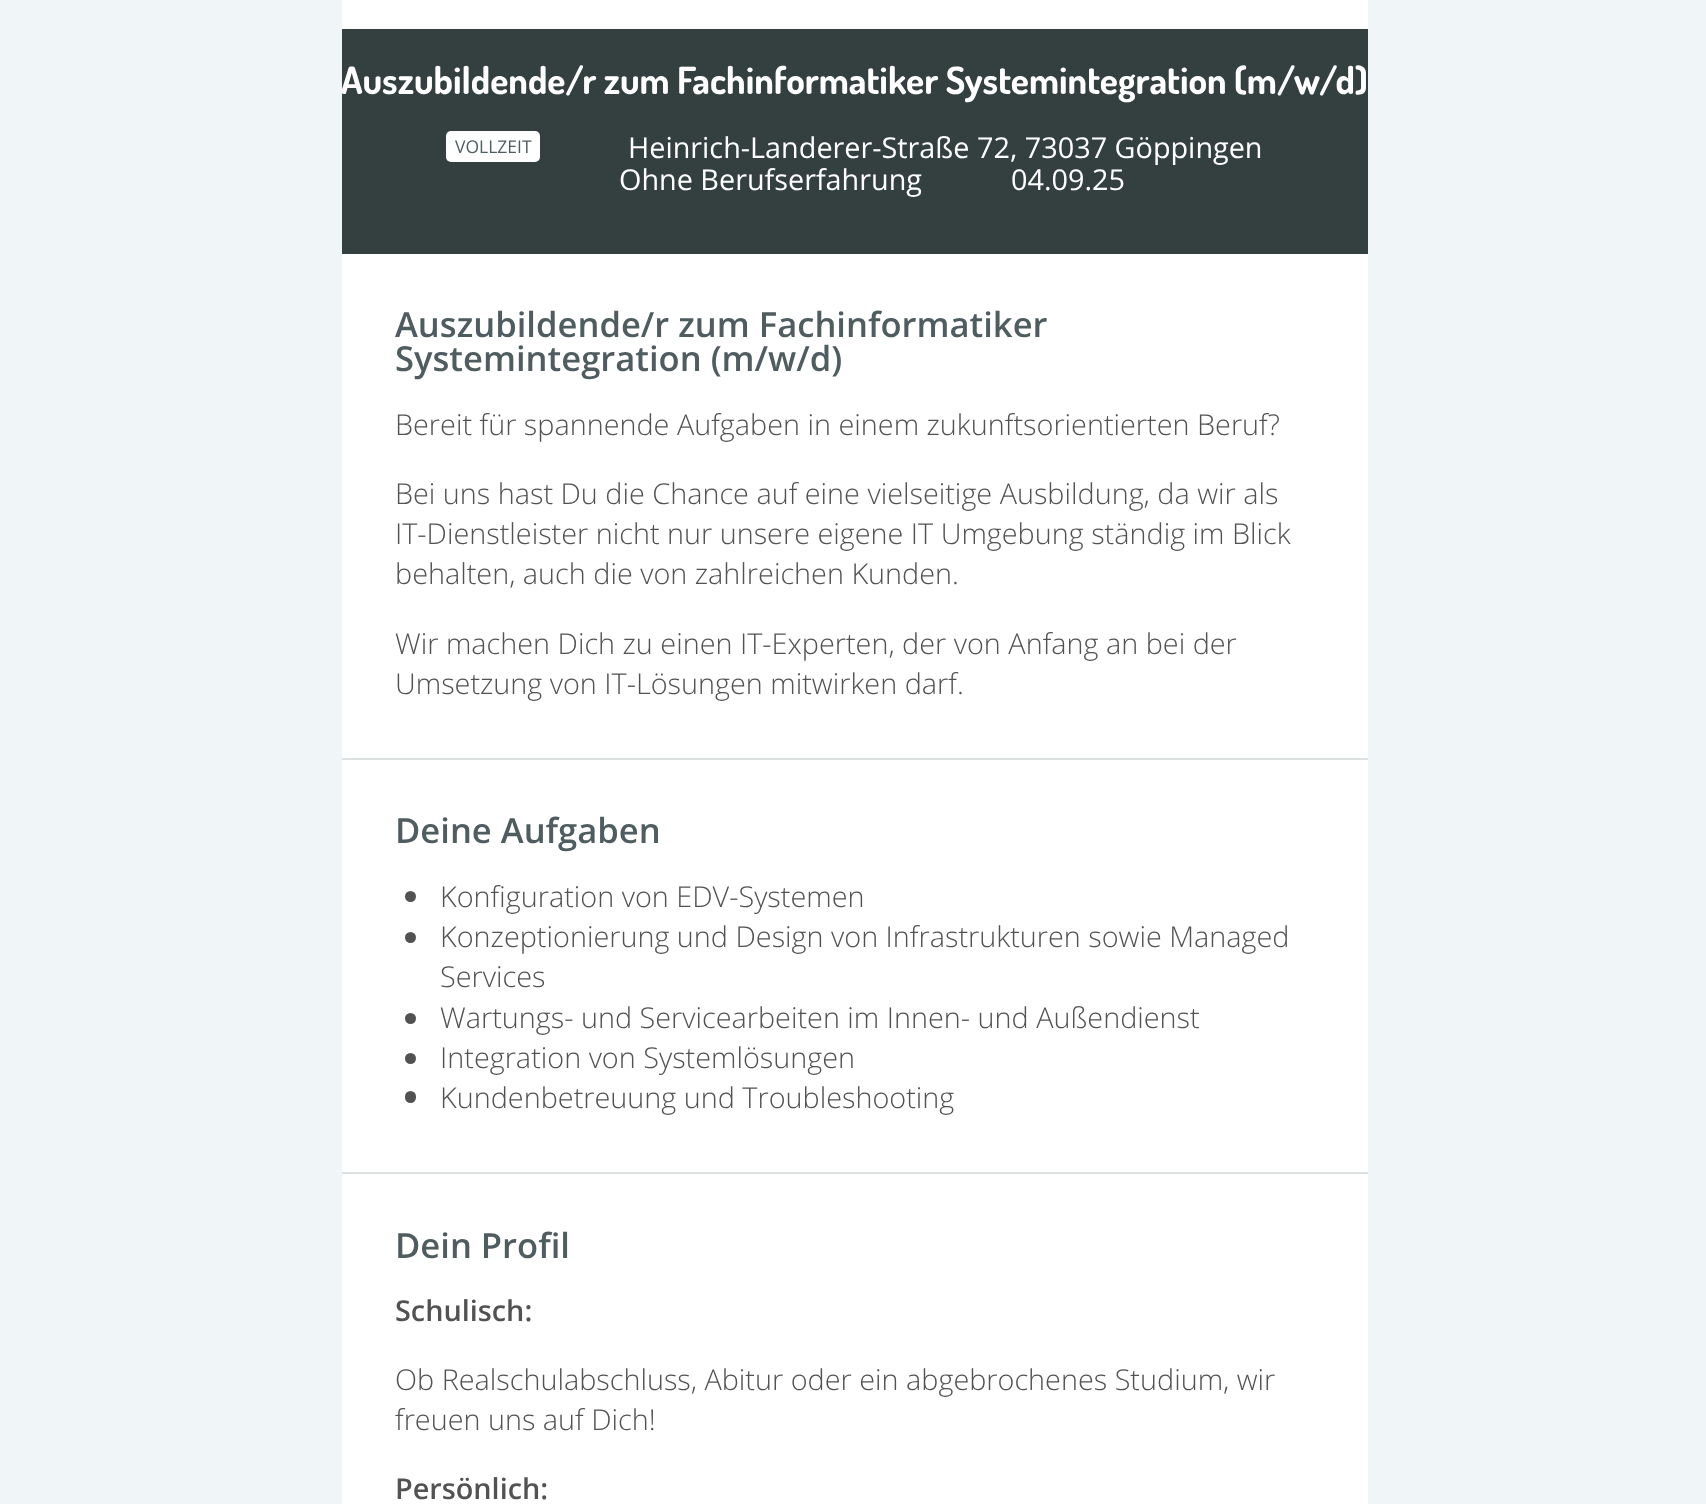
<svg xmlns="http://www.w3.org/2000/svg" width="1706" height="1504">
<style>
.a{font:bold 37.45px Dosis;fill:#fff}
.b{font:17.5px Open Sans;fill:#4f5d60}
.c{font:28.8px Open Sans;fill:#fff}
.d{font:600 34.6px Open Sans;fill:#4f5d60}
.e{font:300 28.8px Open Sans;fill:#525252}
.f{font:600 28.8px Open Sans;fill:#525252}
</style>
<defs>
<clipPath id="clip1"><path d="M342 0h1026v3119H342z"/></clipPath>
</defs>
<rect width="100%" height="100%" fill="#f0f5f8"/>
<path fill="#fff" d="M342 0h1026v1504H342z"/>
<path fill="#343f40" d="M342 29h1026v225H342z"/>
<rect fill="#fff" x="446" y="131" width="94" height="31" rx="5"/>
<path fill="#dde1e2" d="M342 758h1026v2H342z"/>
<path fill="#dde1e2" d="M342 1172h1026v2H342z"/>
<circle fill="#525252" cx="410.5" cy="896.5" r="5.5"/>
<circle fill="#525252" cx="410.5" cy="937.5" r="5.5"/>
<circle fill="#525252" cx="410.5" cy="1018.5" r="5.5"/>
<circle fill="#525252" cx="410.5" cy="1058.5" r="5.5"/>
<rect fill="#525252" x="405" y="1091" width="11" height="12" rx="5.5"/>
<g clip-path="url(#clip1)">
<text class="a" x="341" y="94">Auszubildende/r zum Fachinformatiker Systemintegration (m/w/d)</text>
</g>
<text class="b" x="455" y="153">VOLLZEIT</text>
<text class="c" x="628" y="158">Heinrich-Landerer-Straße 72, 73037 Göppingen</text>
<text class="c" x="619" y="190">Ohne Berufserfahrung</text>
<text class="c" x="1011" y="190">04.09.25</text>
<text class="d" x="395" y="337">Auszubildende/r zum Fachinformatiker</text>
<text class="d" x="395" y="371">Systemintegration (m/w/d)</text>
<text class="e" x="395" y="435">Bereit für spannende Aufgaben in einem zukunftsorientierten Beruf?</text>
<text class="e" x="395" y="504">Bei uns hast Du die Chance auf eine vielseitige Ausbildung, da wir als</text>
<text class="e" x="395" y="544">IT-Dienstleister nicht nur unsere eigene IT Umgebung ständig im Blick</text>
<text class="e" x="395" y="584">behalten, auch die von zahlreichen Kunden.</text>
<text class="e" x="395" y="654">Wir machen Dich zu einen IT-Experten, der von Anfang an bei der</text>
<text class="e" x="395" y="694">Umsetzung von IT-Lösungen mitwirken darf.</text>
<text class="d" x="395" y="843">Deine Aufgaben</text>
<text class="e" x="440" y="907">Konfiguration von EDV-Systemen</text>
<text class="e" x="440" y="947">Konzeptionierung und Design von Infrastrukturen sowie Managed</text>
<text class="e" x="440" y="987">Services</text>
<text class="e" x="440" y="1028">Wartungs- und Servicearbeiten im Innen- und Außendienst</text>
<text class="e" x="440" y="1068">Integration von Systemlösungen</text>
<text class="e" x="440" y="1108">Kundenbetreuung und Troubleshooting</text>
<text class="d" x="395" y="1258">Dein Profil</text>
<text class="f" x="395" y="1321">Schulisch:</text>
<text class="e" x="395" y="1390">Ob Realschulabschluss, Abitur oder ein abgebrochenes Studium, wir</text>
<text class="e" x="395" y="1430">freuen uns auf Dich!</text>
<text class="f" x="395" y="1499">Persönlich:</text>
</svg>
